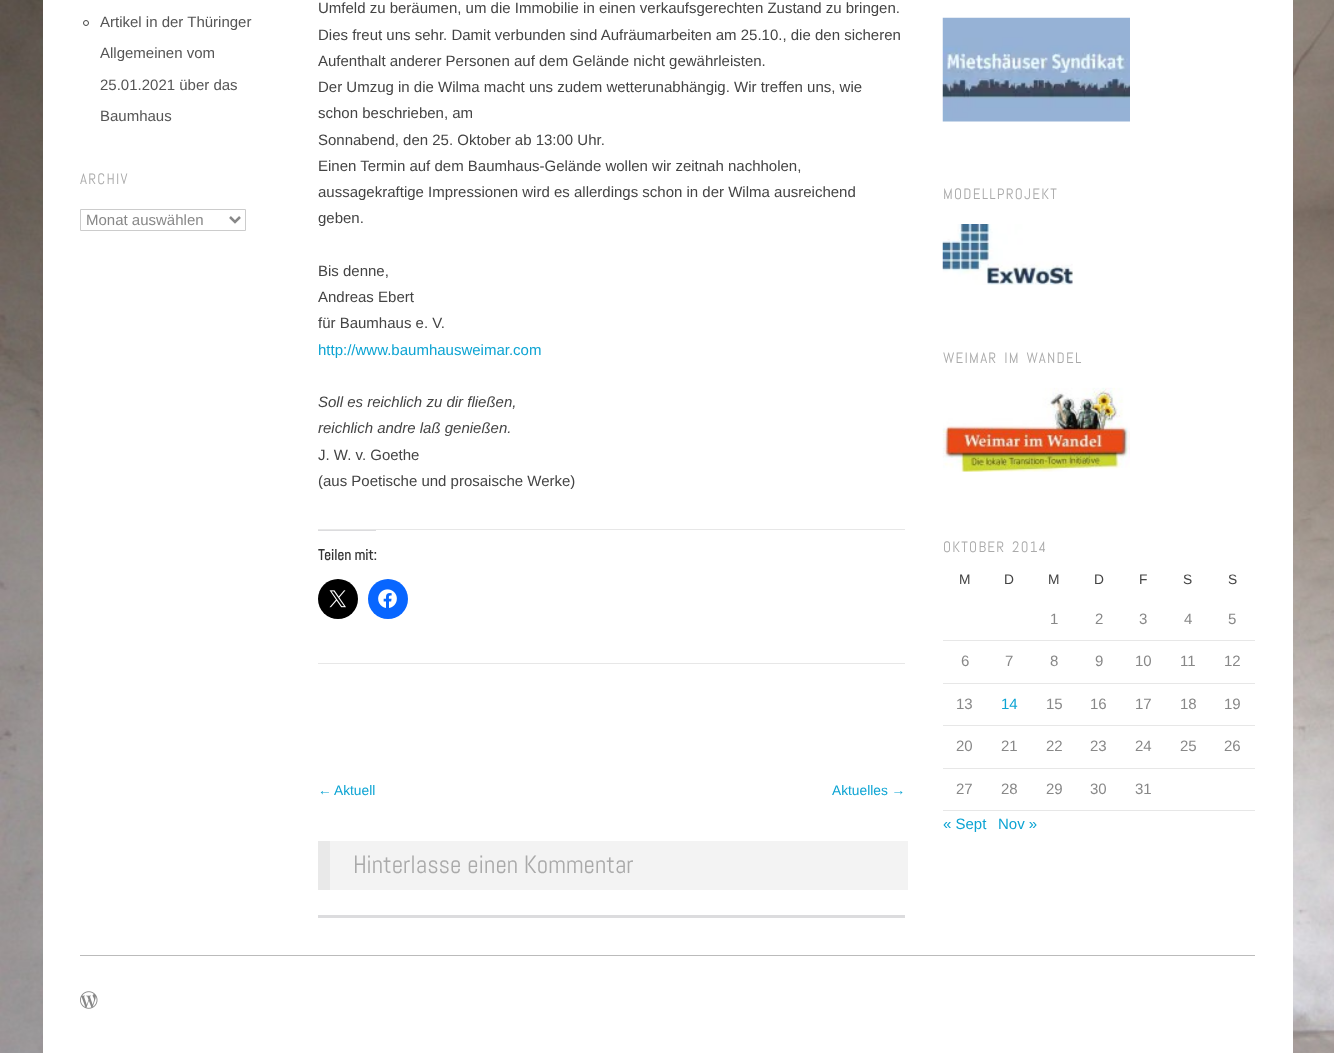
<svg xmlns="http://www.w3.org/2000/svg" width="1334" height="1053">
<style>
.a{font:15px Liberation Sans;fill:#555}
.b{font:15px Abel;letter-spacing:1.25px;fill:#aaa}
.c{font:15px Liberation Sans;fill:#888}
.d{font:15px Liberation Sans;fill:#444}
.e{font:15px Liberation Sans;fill:#0da4d3}
.f{font:italic 15px Liberation Sans;fill:#444}
.g{font:bold 15px Abel;fill:#333}
.h{font:13.75px Liberation Sans;fill:#0da4d3}
.i{font:25px Abel;fill:#aaa}
.j{font:13.75px Liberation Sans;fill:#444}
</style>
<rect width="100%" height="100%" fill="#fff"/>
<image href="1.png" x="0" y="0" width="1334" height="1053"/>
<path fill="#fff" d="M43 0h1250v1053H43z"/>
<circle fill="none" stroke="#444" cx="86" cy="23" r="2.5"/>
<path fill="none" stroke="#ccc" d="M80.5 209.5h165v21H80.5z"/>
<path fill="none" stroke="#888" stroke-width="2.5" d="M230 217l5 5l5-5"/>
<path fill="#e7e7e7" d="M318 529h587v1H318z"/>
<path fill="#dcdcde" d="M318 530h58v1H318z"/>
<circle fill="#000" cx="338" cy="599" r="20"/>
<image href="2.png" x="329" y="590" width="17" height="18"/>
<circle fill="#0866ff" cx="388" cy="599" r="20"/>
<image href="3.png" x="378" y="589" width="19" height="19"/>
<path fill="#e7e7e7" d="M318 663h587v1H318z"/>
<path fill="#f3f3f3" d="M330 841h578v49H330z"/>
<path fill="#e9e9e9" d="M318 841h12v49H318z"/>
<path fill="#dcdcde" d="M318 915h587v3H318z"/>
<image href="4.png" x="942" y="17" width="188" height="105"/>
<image href="5.png" x="942" y="224" width="131" height="61"/>
<image href="6.png" x="942" y="387" width="188" height="85"/>
<path fill="#e7e7e7" d="M943 640h312v1H943z"/>
<path fill="#e7e7e7" d="M943 683h312v1H943z"/>
<path fill="#e7e7e7" d="M943 725h312v1H943z"/>
<path fill="#e7e7e7" d="M943 768h312v1H943z"/>
<path fill="#e7e7e7" d="M943 810h312v1H943z"/>
<path fill="#bbb" d="M80 955h1175v1H80z"/>
<image href="7.png" x="80" y="991" width="18" height="18"/>
<text class="a" x="100" y="27">Artikel in der Thüringer</text>
<text class="a" x="100" y="58">Allgemeinen vom</text>
<text class="a" x="100" y="90">25.01.2021 über das</text>
<text class="a" x="100" y="121">Baumhaus</text>
<text class="b" x="80" y="184">ARCHIV</text>
<text class="c" x="86" y="225">Monat auswählen</text>
<text class="d" x="318" y="13">Umfeld zu beräumen, um die Immobilie in einen verkaufsgerechten Zustand zu bringen.</text>
<text class="d" x="318" y="40">Dies freut uns sehr. Damit verbunden sind Aufräumarbeiten am 25.10., die den sicheren</text>
<text class="d" x="318" y="66">Aufenthalt anderer Personen auf dem Gelände nicht gewährleisten.</text>
<text class="d" x="318" y="92">Der Umzug in die Wilma macht uns zudem wetterunabhängig. Wir treffen uns, wie</text>
<text class="d" x="318" y="118">schon beschrieben, am</text>
<text class="d" x="318" y="145">Sonnabend, den 25. Oktober ab 13:00 Uhr.</text>
<text class="d" x="318" y="171">Einen Termin auf dem Baumhaus-Gelände wollen wir zeitnah nachholen,</text>
<text class="d" x="318" y="197">aussagekraftige Impressionen wird es allerdings schon in der Wilma ausreichend</text>
<text class="d" x="318" y="223">geben.</text>
<text class="d" x="318" y="276">Bis denne,</text>
<text class="d" x="318" y="302">Andreas Ebert</text>
<text class="d" x="318" y="328">für Baumhaus e. V.</text>
<text class="e" x="318" y="355">http://www.baumhausweimar.com</text>
<text class="f" x="318" y="407">Soll es reichlich zu dir fließen,</text>
<text class="f" x="318" y="433">reichlich andre laß genießen.</text>
<text class="d" x="318" y="460">J. W. v. Goethe</text>
<text class="d" x="318" y="486">(aus Poetische und prosaische Werke)</text>
<text class="g" x="318" y="560">Teilen mit:</text>
<text class="h" x="318" y="795">←</text>
<text class="h" x="334" y="795">Aktuell</text>
<text class="h" x="832" y="795">Aktuelles →</text>
<text class="i" x="353" y="873">Hinterlasse einen Kommentar</text>
<text class="b" x="943" y="199">MODELLPROJEKT</text>
<text class="b" x="943" y="363" word-spacing="2">WEIMAR IM WANDEL</text>
<text class="b" x="943" y="552" word-spacing="2">OKTOBER 2014</text>
<text class="j" x="959" y="584">M</text>
<text class="j" x="1004" y="584">D</text>
<text class="j" x="1048" y="584">M</text>
<text class="j" x="1094" y="584">D</text>
<text class="j" x="1139" y="584">F</text>
<text class="j" x="1183" y="584">S</text>
<text class="j" x="1228" y="584">S</text>
<text class="c" x="1050" y="624">1</text>
<text class="c" x="1095" y="624">2</text>
<text class="c" x="1139" y="624">3</text>
<text class="c" x="1184" y="624">4</text>
<text class="c" x="1228" y="624">5</text>
<text class="c" x="961" y="666">6</text>
<text class="c" x="1005" y="666">7</text>
<text class="c" x="1050" y="666">8</text>
<text class="c" x="1095" y="666">9</text>
<text class="c" x="1135" y="666">10</text>
<text class="c" x="1180" y="666">11</text>
<text class="c" x="1224" y="666">12</text>
<text class="c" x="956" y="709">13</text>
<text class="e" x="1001" y="709">14</text>
<text class="c" x="1046" y="709">15</text>
<text class="c" x="1090" y="709">16</text>
<text class="c" x="1135" y="709">17</text>
<text class="c" x="1180" y="709">18</text>
<text class="c" x="1224" y="709">19</text>
<text class="c" x="956" y="751">20</text>
<text class="c" x="1001" y="751">21</text>
<text class="c" x="1046" y="751">22</text>
<text class="c" x="1090" y="751">23</text>
<text class="c" x="1135" y="751">24</text>
<text class="c" x="1180" y="751">25</text>
<text class="c" x="1224" y="751">26</text>
<text class="c" x="956" y="794">27</text>
<text class="c" x="1001" y="794">28</text>
<text class="c" x="1046" y="794">29</text>
<text class="c" x="1090" y="794">30</text>
<text class="c" x="1135" y="794">31</text>
<text class="e" x="943" y="829">« Sept</text>
<text class="e" x="998" y="829">Nov »</text>
</svg>
